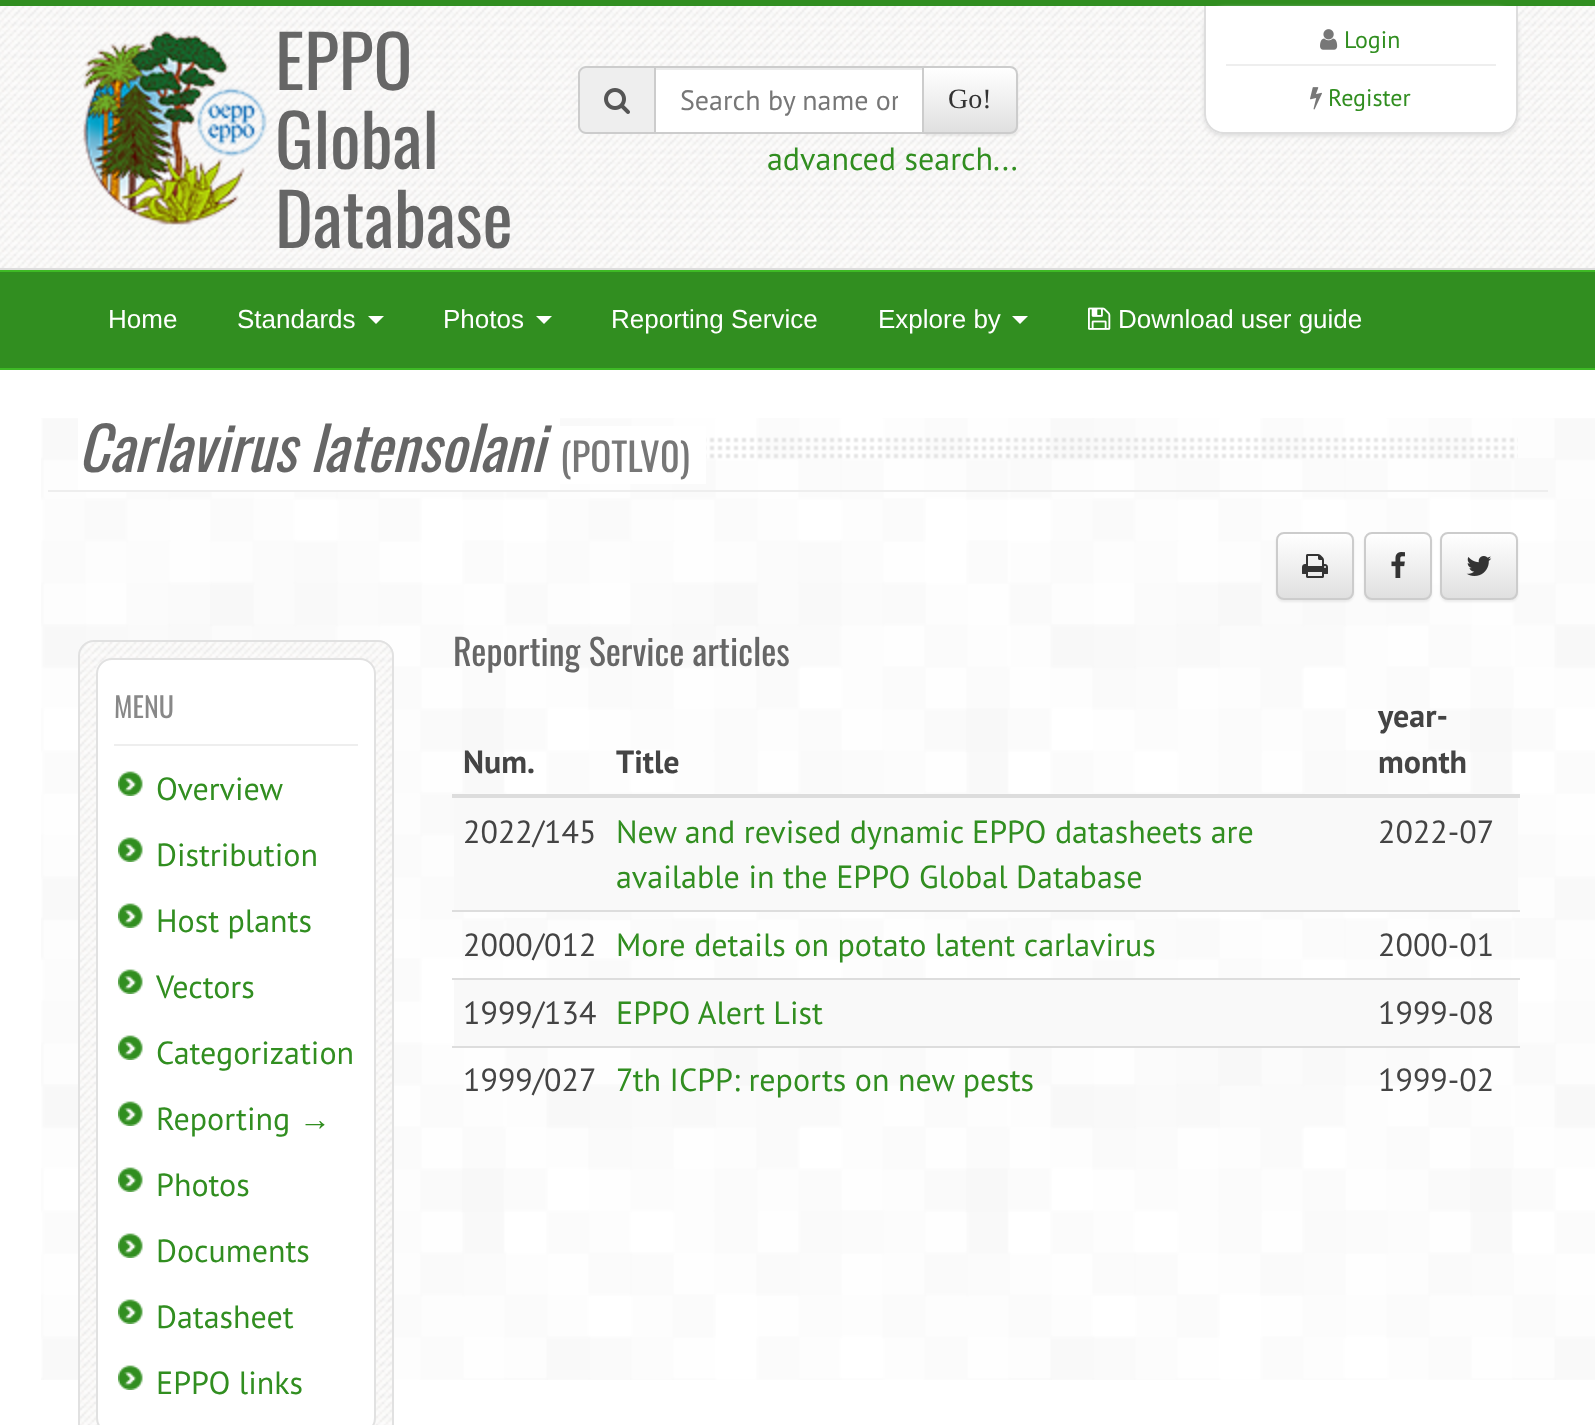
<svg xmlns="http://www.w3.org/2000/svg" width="1595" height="1425">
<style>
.a{font:72px Oswald;fill:#666}
.b{font:24px PT Sans;fill:#318e20}
.c{font:28px PT Sans;fill:#777}
.d{font:28px Liberation Serif;fill:#333}
.e{font:32px PT Sans;fill:#318e20}
.f{font:26px Liberation Sans;fill:#fff}
.g{font:italic 60px Oswald;fill:#666}
.h{font:39px Oswald;fill:#777}
.i{font:28px Oswald;fill:#888}
.j{font:32px Liberation Sans;fill:#318e20}
.k{font:36px Oswald;fill:#666}
.l{font:bold 32px PT Sans;fill:#444}
.m{font:32px PT Sans;fill:#444}
</style>
<defs>
<clipPath id="clip1"><path d="M922 66h88c4.5 0 8 3.5 8 8v52c0 4.5-3.5 8-8 8h-88z"/></clipPath>
<linearGradient id="g1" gradientUnits="userSpaceOnUse" x1="970" y1="68" x2="970" y2="132"><stop offset="0" stop-color="#fff"/><stop offset="1" stop-color="#e0e0e0"/></linearGradient>
<clipPath id="clip2"><rect x="1276" y="532" width="78" height="68" rx="8"/></clipPath>
<linearGradient id="g2" gradientUnits="userSpaceOnUse" x1="1315" y1="534" x2="1315" y2="598"><stop offset="0" stop-color="#fff"/><stop offset="1" stop-color="#e0e0e0"/></linearGradient>
<clipPath id="clip3"><rect x="1364" y="532" width="68" height="68" rx="8"/></clipPath>
<linearGradient id="g3" gradientUnits="userSpaceOnUse" x1="1398" y1="534" x2="1398" y2="598"><stop offset="0" stop-color="#fff"/><stop offset="1" stop-color="#e0e0e0"/></linearGradient>
<clipPath id="clip4"><rect x="1440" y="532" width="78" height="68" rx="8"/></clipPath>
<linearGradient id="g4" gradientUnits="userSpaceOnUse" x1="1479" y1="534" x2="1479" y2="598"><stop offset="0" stop-color="#fff"/><stop offset="1" stop-color="#e0e0e0"/></linearGradient>
<clipPath id="clip5"><path d="M680 82h218v36H680z"/></clipPath>
</defs>
<rect width="100%" height="100%" fill="#fff"/>
<image href="1.png" x="41" y="418" width="1554" height="962"/>
<path fill="#318e20" d="M0 0h1595v6H0z"/>
<image href="2.png" x="0" y="6" width="1595" height="262"/>
<path fill="#ddd" d="M0 268h1595v2H0z"/>
<image href="3.png" x="83" y="31" width="184" height="194"/>
<rect fill="#ddd" filter="blur(2px)" x="1204" y="8" width="314" height="128" rx="20"/>
<path fill="#fff" d="M1204 6h314v108c0 11-9 20-20 20h-274c-11 0-20-9-20-20z"/>
<path fill="#ddd" fill-rule="evenodd" d="M1204 6h314v108c0 11-9 20-20 20h-274c-11 0-20-9-20-20zm2 0h310v108c0 10-8 18-18 18h-274c-10 0-18-8-18-18z"/>
<image href="4.png" x="1320" y="29" width="18" height="21"/>
<path fill="#eee" d="M1226 64h270v2H1226z"/>
<image href="5.png" x="1310" y="87" width="12" height="23"/>
<path fill="#eee" d="M586 66h68v68h-68c-4.5 0-8-3.5-8-8v-52c0-4.5 3.5-8 8-8z"/>
<path fill="#ccc" fill-rule="evenodd" d="M586 66h68v68h-68c-4 0-8-4-8-8v-52c0-4 4-8 8-8zm0 2h68v64h-68c-3 0-6-3-6-6v-52c0-3 3-6 6-6z"/>
<image href="6.png" x="604" y="88" width="26" height="26"/>
<rect fill="#00000012" filter="blur(1px)" x="922" y="68" width="96" height="68" rx="8"/>
<path fill="#fff" d="M656 70h266v62H656z"/>
<path fill="#ececec" d="M656 68h266v2H656z"/>
<g clip-path="url(#clip1)">
<path fill="url(#g1)" d="M924 68h94v64H924z"/>
</g>
<path fill="none" stroke="#ccc" stroke-width="2" d="M923 67h87c4 0 7 3 7 7v52c0 4-3 7-7 7h-87z"/>
<path fill="none" stroke="#ccc" stroke-width="2" d="M655 67h268v66H655z"/>
<path fill="#318e20" d="M0 272h1595v96H0z"/>
<path fill="#3eba25" d="M0 270h1595v2H0z"/>
<path fill="#3eba25" d="M0 368h1595v2H0z"/>
<path fill="#fff" d="M368 316h16l-8 8z"/>
<path fill="#fff" d="M536 316h16l-8 8z"/>
<path fill="#fff" d="M1012 316h16l-8 8z"/>
<image href="7.png" x="1088" y="307" width="23" height="23"/>
<path fill="#eee" d="M48 490h1500v2H48z"/>
<image href="8.png" x="706" y="437" width="812" height="22"/>
<path fill="#fff" d="M78 418h482v72H78z"/>
<path fill="#fff" d="M560 426h146v58H560z"/>
<rect fill="#00000012" filter="blur(1px)" x="1276" y="534" width="78" height="68" rx="8"/>
<g clip-path="url(#clip2)">
<path fill="url(#g2)" d="M1276 534h78v64H1276z"/>
</g>
<rect fill="none" stroke="#ccc" stroke-width="2" x="1277" y="533" width="76" height="66" rx="7"/>
<image href="9.png" x="1302" y="554" width="26" height="24"/>
<rect fill="#00000012" filter="blur(1px)" x="1364" y="534" width="68" height="68" rx="8"/>
<g clip-path="url(#clip3)">
<path fill="url(#g3)" d="M1364 534h68v64H1364z"/>
</g>
<rect fill="none" stroke="#ccc" stroke-width="2" x="1365" y="533" width="66" height="66" rx="7"/>
<image href="10.png" x="1391" y="552" width="14" height="26"/>
<rect fill="#00000012" filter="blur(1px)" x="1440" y="534" width="78" height="68" rx="8"/>
<g clip-path="url(#clip4)">
<path fill="url(#g4)" d="M1440 534h78v64H1440z"/>
</g>
<rect fill="none" stroke="#ccc" stroke-width="2" x="1441" y="533" width="76" height="66" rx="7"/>
<image href="11.png" x="1466" y="556" width="26" height="20"/>
<image href="12.png" x="78" y="640" width="316" height="785"/>
<rect fill="none" stroke="#e1e1e1" stroke-width="2" x="79" y="641" width="314" height="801" rx="15"/>
<rect fill="#fff" stroke="#e1e1e1" stroke-width="2" x="97" y="659" width="278" height="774" rx="15"/>
<path fill="#eee" d="M114 744h244v2H114z"/>
<image href="13.png" x="118" y="771" width="25" height="25"/>
<image href="13.png" x="118" y="837" width="25" height="25"/>
<image href="13.png" x="118" y="903" width="25" height="25"/>
<image href="13.png" x="118" y="969" width="25" height="25"/>
<image href="13.png" x="118" y="1035" width="25" height="25"/>
<image href="13.png" x="118" y="1101" width="25" height="25"/>
<image href="13.png" x="118" y="1167" width="25" height="25"/>
<image href="13.png" x="118" y="1233" width="25" height="25"/>
<image href="13.png" x="118" y="1299" width="25" height="25"/>
<image href="14.png" x="118" y="1365" width="25" height="25"/>
<path fill="#ddd" d="M452 794h1068v4H452z"/>
<path fill="#f9f9f9" d="M454 798h1064v112H454z"/>
<path fill="#ddd" d="M452 910h1068v2H452z"/>
<path fill="#f9f9f9" d="M454 980h1064v66H454z"/>
<path fill="#ddd" d="M452 978h1068v2H452z"/>
<path fill="#ddd" d="M452 1046h1068v2H452z"/>
<text class="a" x="275" y="90">EPPO</text>
<text class="a" x="275" y="169">Global</text>
<text class="a" x="275" y="248">Database</text>
<text class="b" x="1344" y="48">Login</text>
<text class="b" x="1328" y="106">Register</text>
<g clip-path="url(#clip5)">
<text class="c" x="680" y="110">Search by name or</text>
</g>
<text class="d" x="948" y="108">Go!</text>
<text class="e" x="767" y="170">advanced search...</text>
<text class="f" x="108" y="328">Home</text>
<text class="f" x="237" y="328">Standards</text>
<text class="f" x="443" y="328">Photos</text>
<text class="f" x="611" y="328">Reporting Service</text>
<text class="f" x="878" y="328">Explore by</text>
<text class="f" x="1118" y="328">Download user guide</text>
<text class="g" x="78" y="472">Carlavirus latensolani</text>
<text class="h" x="560" y="472">(POTLV0)</text>
<text class="i" x="114" y="718">MENU</text>
<text class="e" x="156" y="800">Overview</text>
<text class="e" x="156" y="866">Distribution</text>
<text class="e" x="156" y="932">Host plants</text>
<text class="e" x="156" y="998">Vectors</text>
<text class="e" x="156" y="1064">Categorization</text>
<text class="e" x="156" y="1130">Reporting</text>
<text class="j" x="299" y="1130">→</text>
<text class="e" x="156" y="1196">Photos</text>
<text class="e" x="156" y="1262">Documents</text>
<text class="e" x="156" y="1328">Datasheet</text>
<text class="e" x="156" y="1394">EPPO links</text>
<text class="k" x="453" y="666">Reporting Service articles</text>
<text class="l" x="463" y="773">Num.</text>
<text class="l" x="616" y="773">Title</text>
<text class="l" x="1378" y="727">year-</text>
<text class="l" x="1378" y="773">month</text>
<text class="m" x="463" y="843">2022/145</text>
<text class="e" x="616" y="843">New and revised dynamic EPPO datasheets are</text>
<text class="e" x="616" y="888">available in the EPPO Global Database</text>
<text class="m" x="1378" y="843">2022-07</text>
<text class="m" x="463" y="956">2000/012</text>
<text class="e" x="616" y="956">More details on potato latent carlavirus</text>
<text class="m" x="1378" y="956">2000-01</text>
<text class="m" x="463" y="1024">1999/134</text>
<text class="e" x="616" y="1024">EPPO Alert List</text>
<text class="m" x="1378" y="1024">1999-08</text>
<text class="m" x="463" y="1091">1999/027</text>
<text class="e" x="616" y="1091">7th ICPP: reports on new pests</text>
<text class="m" x="1378" y="1091">1999-02</text>
</svg>
